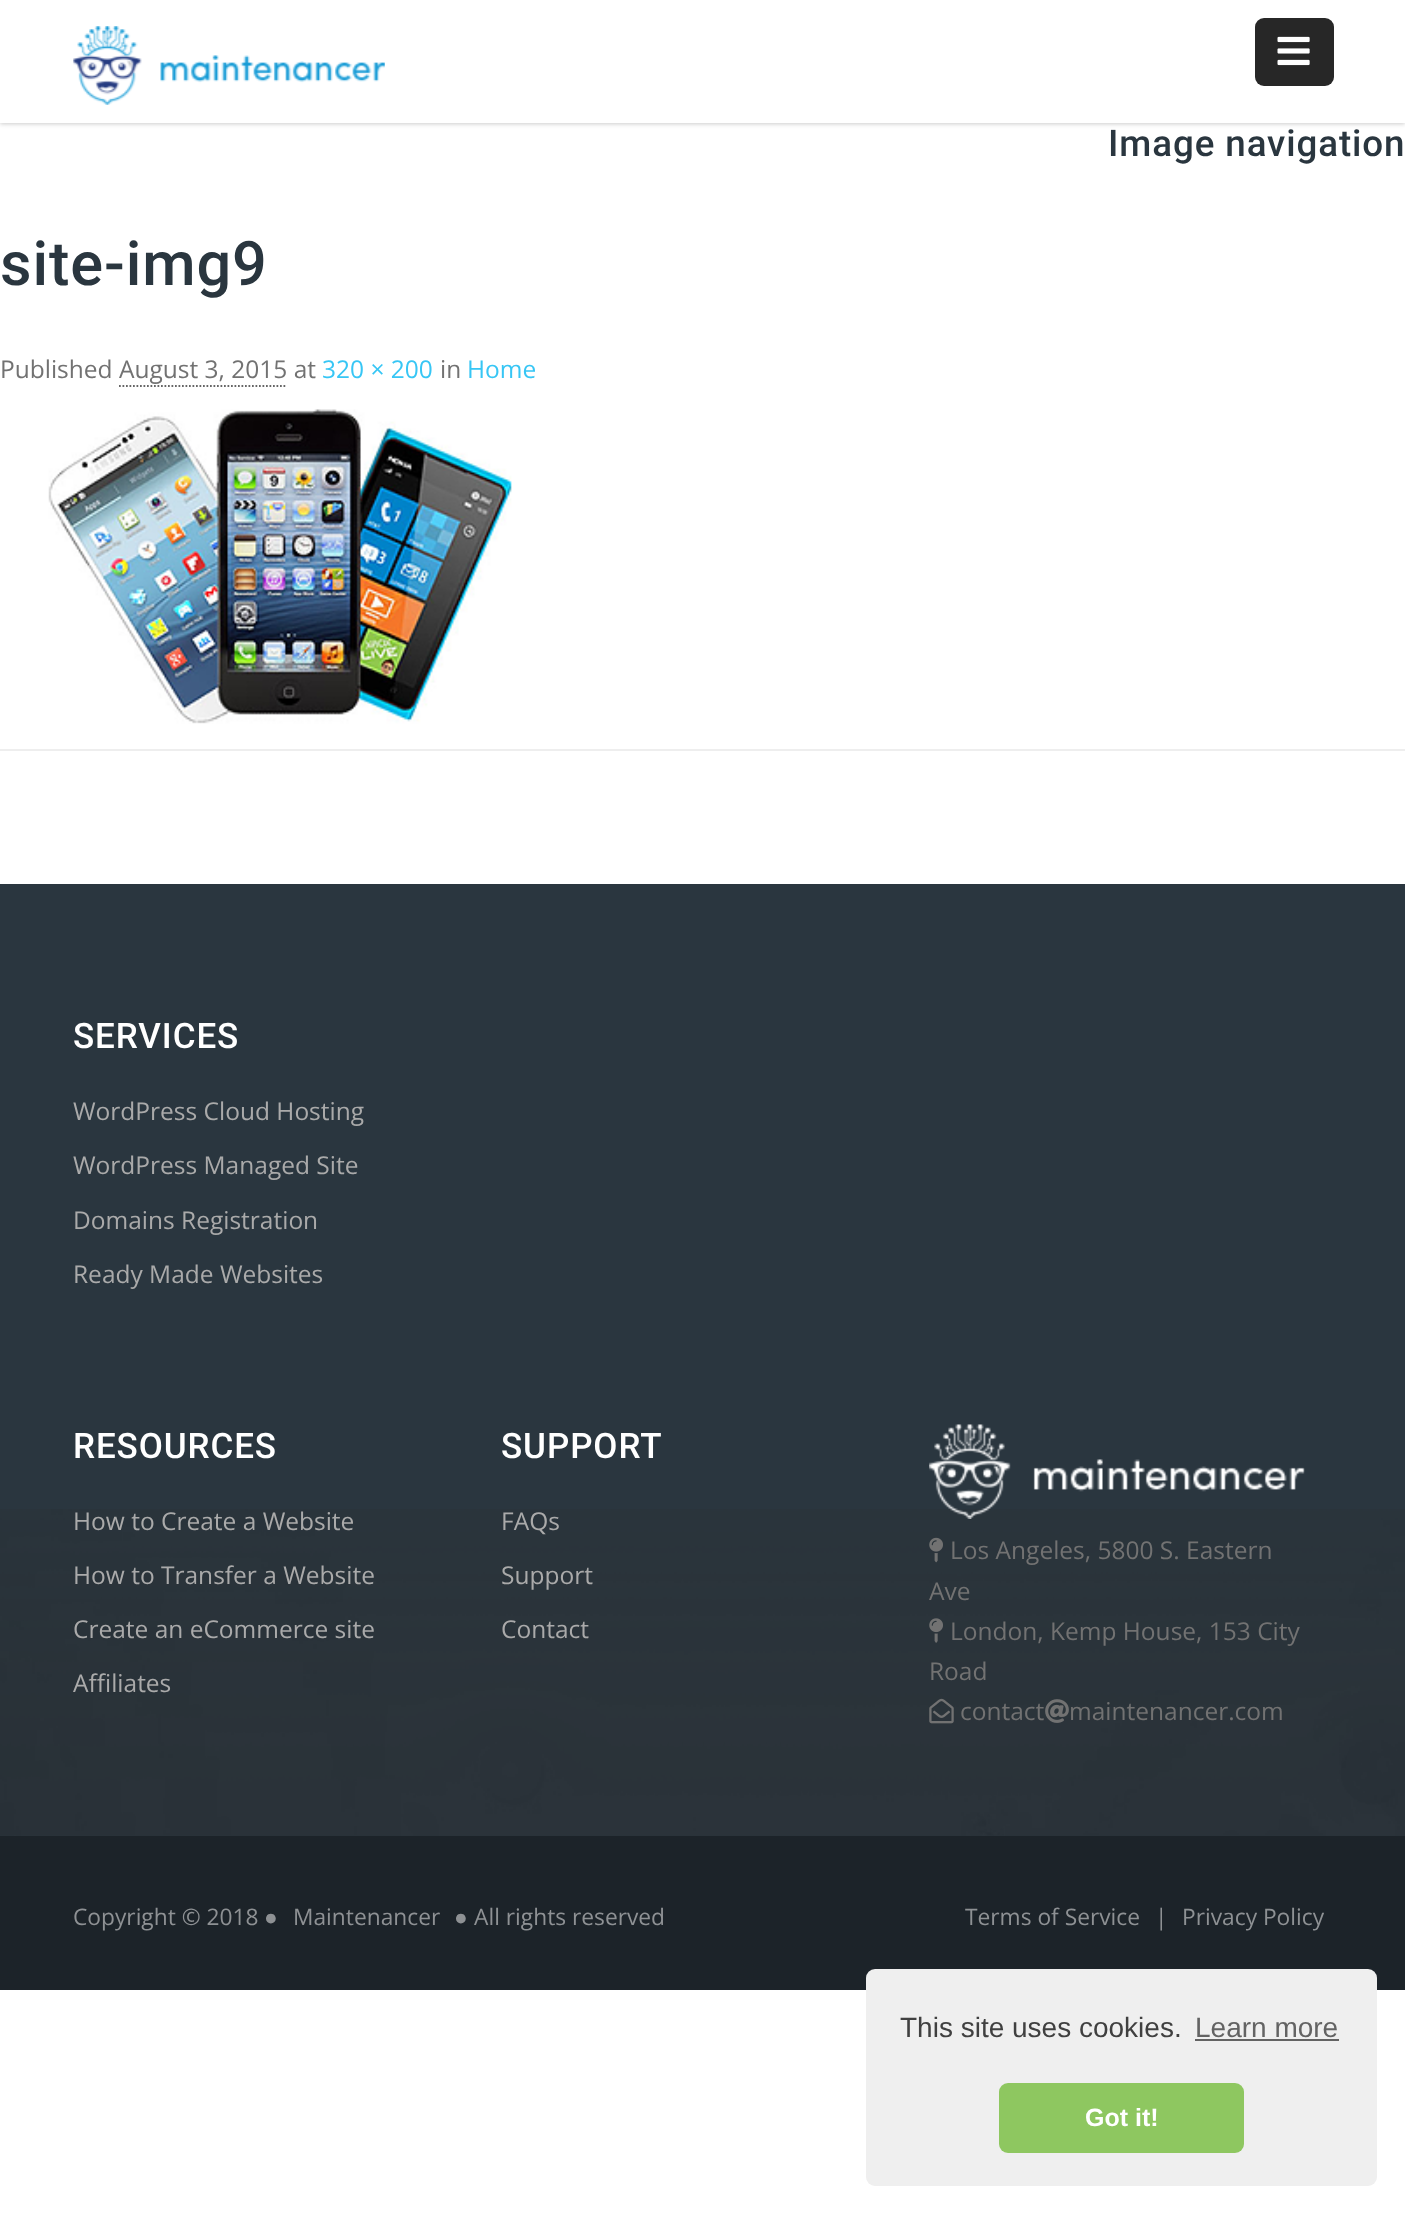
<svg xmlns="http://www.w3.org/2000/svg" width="1405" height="2213">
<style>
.a{font:500 36.75px Roboto;letter-spacing:0.9px;fill:#2a363f}
.b{font:500 61.25px Roboto;letter-spacing:0.9px;fill:#2a363f}
.c{font:24.5px Open Sans;fill:#727272}
.d{font:24.5px Open Sans;fill:#37c6f5}
.e{font:500 35px Roboto;letter-spacing:0.9px;fill:#fff}
.f{font:24.5px Open Sans;fill:#aaa}
.g{font:22.75px Open Sans;fill:#8e9194}
.h{font:22.75px Liberation Sans;fill:#8e9194}
.i{font:28px Liberation Sans;fill:#404040}
.j{font:28px Liberation Sans;fill:#636363}
.k{font:bold 25px Liberation Sans;fill:#fff}
</style>
<rect width="100%" height="100%" fill="#fff"/>
<path fill="#00000033" filter="blur(2px)" d="M0 2h1405v122H0z"/>
<path fill="#fff" d="M0 0h1405v123H0z"/>
<image href="1.png" x="73" y="26" width="312" height="79"/>
<rect fill="#272727" x="1255" y="18" width="79" height="68" rx="9"/>
<image href="2.png" x="1277" y="36" width="33" height="30"/>
<path fill="none" stroke="#666" stroke-width="1.8" stroke-dasharray="1.75 1.75" d="M119 386h168"/>
<image href="3.png" x="48" y="409" width="464" height="315"/>
<path fill="#eee" d="M0 749h1405v2H0z"/>
<path fill="#2a363f" d="M0 884h1405v952H0z"/>
<image href="4.png" x="0" y="1509" width="1405" height="327"/>
<image href="5.png" x="929" y="1424" width="376" height="95"/>
<image href="6.png" x="929" y="1537" width="14" height="26"/>
<image href="7.png" x="929" y="1618" width="14" height="25"/>
<image href="8.png" x="929" y="1698" width="25" height="26"/>
<image href="9.png" x="1045" y="1699" width="24" height="24"/>
<path fill="#1c2329" d="M0 1836h1405v154H0z"/>
<rect fill="#efefef" x="866" y="1969" width="511" height="217" rx="9"/>
<path fill="#636363" d="M1195 2039h144v2H1195z"/>
<rect fill="#8ec760" x="999" y="2083" width="245" height="70" rx="9"/>
<text class="a" x="1108" y="156">Image navigation</text>
<text class="b" x="0" y="285">site-img9</text>
<text class="c" x="0" y="378">Published August 3, 2015 at</text>
<text class="d" x="322" y="378">320 × 200</text>
<text class="c" x="440" y="378">in</text>
<text class="d" x="467" y="378">Home</text>
<text class="e" x="73" y="1048">SERVICES</text>
<text class="f" x="73" y="1120">WordPress Cloud Hosting</text>
<text class="f" x="73" y="1174">WordPress Managed Site</text>
<text class="f" x="73" y="1229">Domains Registration</text>
<text class="f" x="73" y="1283">Ready Made Websites</text>
<text class="e" x="73" y="1458">RESOURCES</text>
<text class="f" x="73" y="1530">How to Create a Website</text>
<text class="f" x="73" y="1584">How to Transfer a Website</text>
<text class="f" x="73" y="1638">Create an eCommerce site</text>
<text class="f" x="73" y="1692">Affiliates</text>
<text class="e" x="501" y="1458">SUPPORT</text>
<text class="f" x="501" y="1530">FAQs</text>
<text class="f" x="501" y="1584">Support</text>
<text class="f" x="501" y="1638">Contact</text>
<text class="c" x="950" y="1559">Los Angeles, 5800 S. Eastern</text>
<text class="c" x="929" y="1600">Ave</text>
<text class="c" x="950" y="1640">London, Kemp House, 153 City</text>
<text class="c" x="929" y="1680">Road</text>
<text class="c" x="960" y="1720">contact</text>
<text class="c" x="1069" y="1720">maintenancer.com</text>
<text class="g" x="73" y="1925">Copyright © 2018</text>
<text class="h" x="264" y="1925">●</text>
<text class="g" x="293" y="1925">Maintenancer</text>
<text class="h" x="454" y="1925">●</text>
<text class="g" x="474" y="1925">All rights reserved</text>
<text class="g" x="965" y="1925">Terms of Service</text>
<text class="g" x="1155" y="1925">|</text>
<text class="g" x="1182" y="1925">Privacy Policy</text>
<text class="i" x="900" y="2037">This site uses cookies.</text>
<text class="j" x="1195" y="2037">Learn more</text>
<text class="k" x="1085" y="2126">Got it!</text>
</svg>
